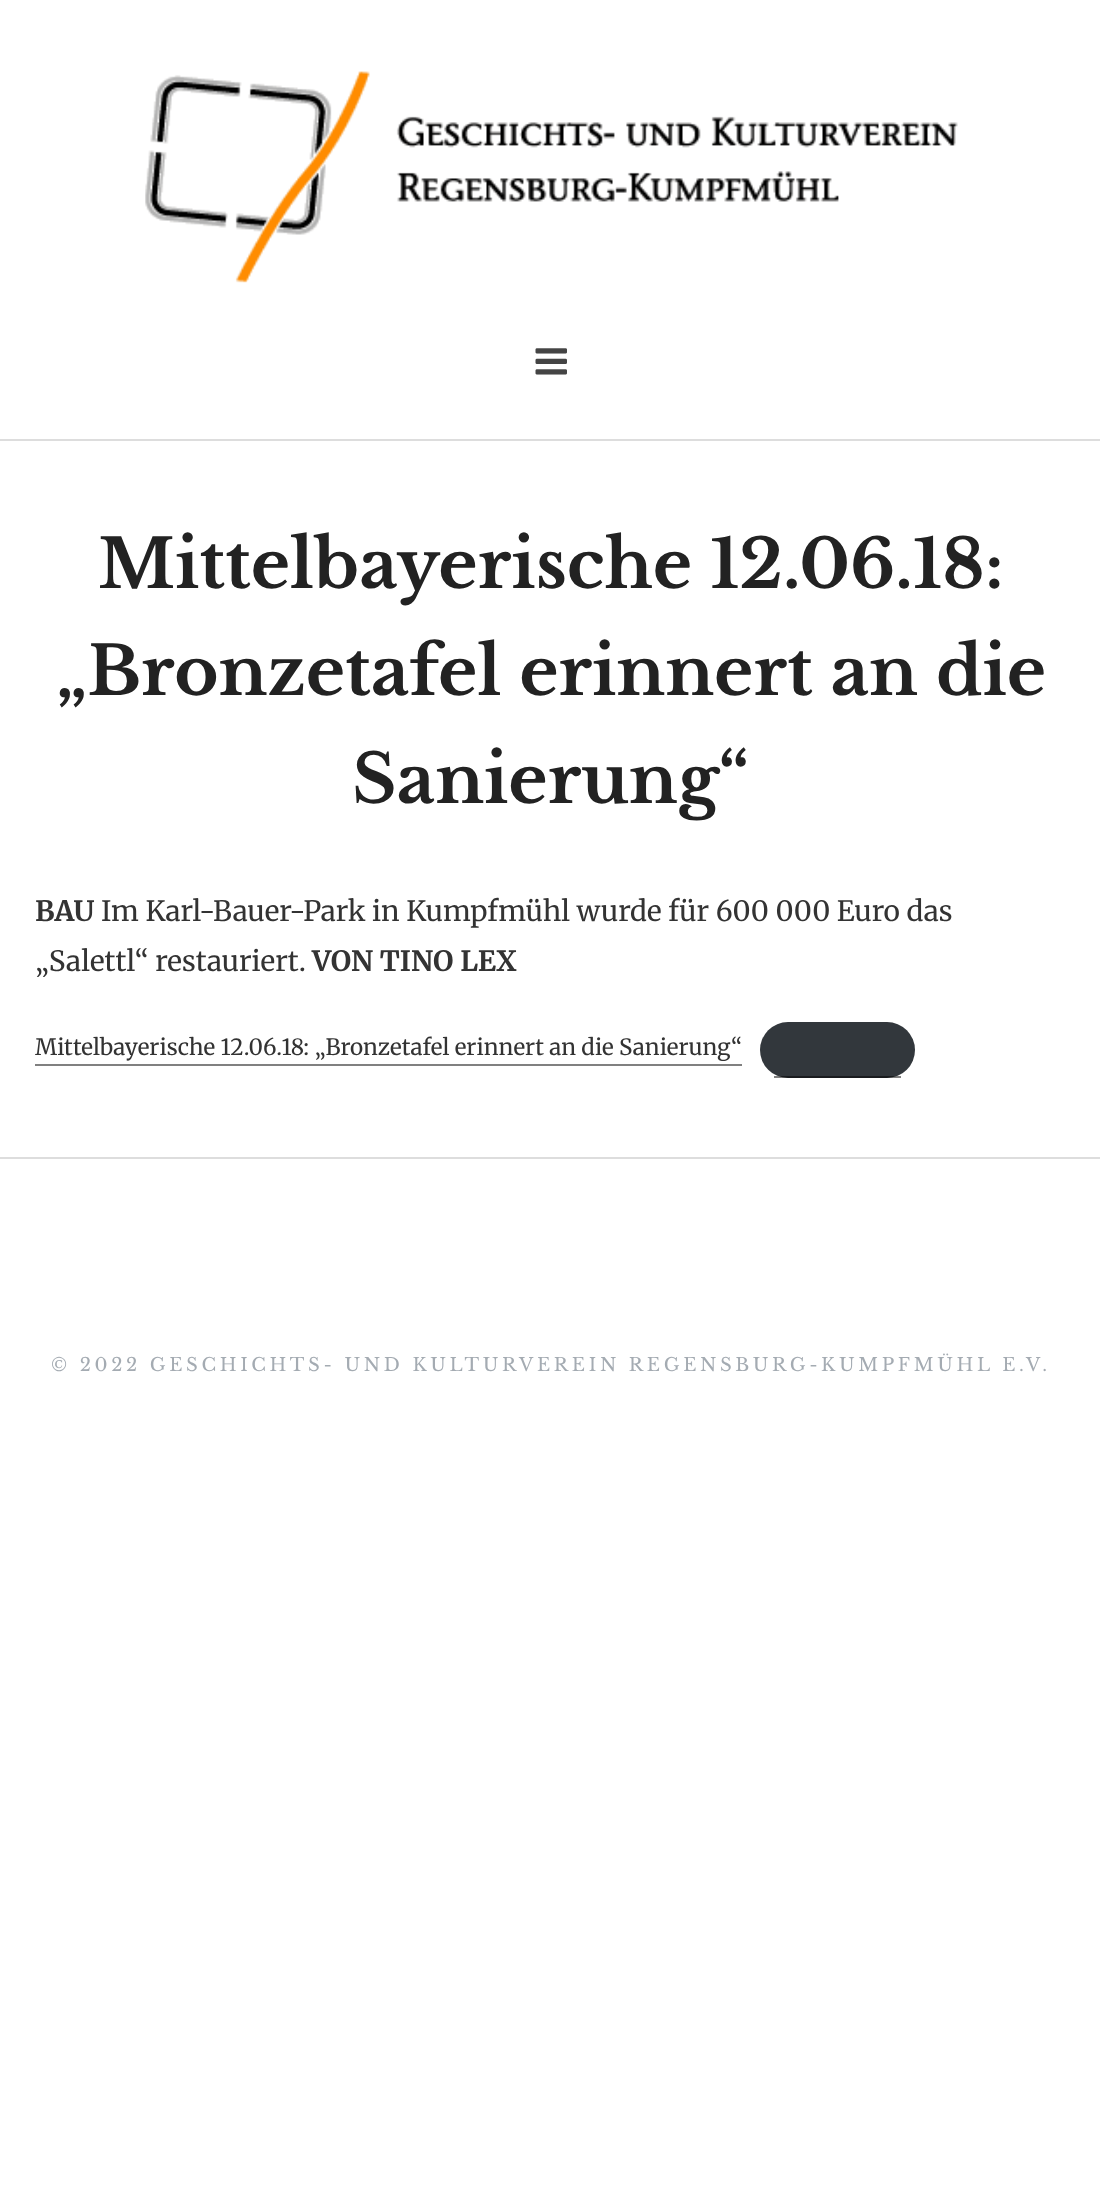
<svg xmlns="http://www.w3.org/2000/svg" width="1100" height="2205">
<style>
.a{font:bold 67.25px Libre Baskerville;fill:#222}
.b{font:bold 28px Merriweather;fill:#333}
.c{font:28px Merriweather;fill:#333}
.d{font:22.4px Merriweather;fill:#333}
.e{font:18.2px Libre Baskerville;letter-spacing:3.65px;fill:#a4abb2}
</style>
<rect width="100%" height="100%" fill="#fff"/>
<path fill="#ddd" d="M0 439h1100v2H0z"/>
<image href="1.png" x="145" y="71" width="813" height="212"/>
<image href="2.png" x="535" y="348" width="32" height="27"/>
<path fill="#808080" d="M35 1064h707v2H35z"/>
<rect fill="#32373c" x="760" y="1022" width="155" height="56" rx="28"/>
<path fill="#00000080" d="M774 1076h127v2H774z"/>
<path fill="#ddd" d="M0 1157h1100v2H0z"/>
<text class="a" x="98" y="588">Mittelbayerische 12.06.18:</text>
<text class="a" x="56" y="695">„Bronzetafel erinnert an die</text>
<text class="a" x="352" y="803">Sanierung“</text>
<text class="b" x="35" y="921">BAU</text>
<text class="c" x="101" y="921">Im Karl-Bauer-Park in Kumpfmühl wurde für 600 000 Euro das</text>
<text class="c" x="35" y="971">„Salettl“ restauriert.</text>
<text class="b" x="312" y="971">VON TINO LEX</text>
<text class="d" x="35" y="1055">Mittelbayerische 12.06.18: „Bronzetafel erinnert an die Sanierung“</text>
<text class="e" x="51" y="1371">© 2022 GESCHICHTS- UND KULTURVEREIN REGENSBURG-KUMPFMÜHL E.V.</text>
</svg>
